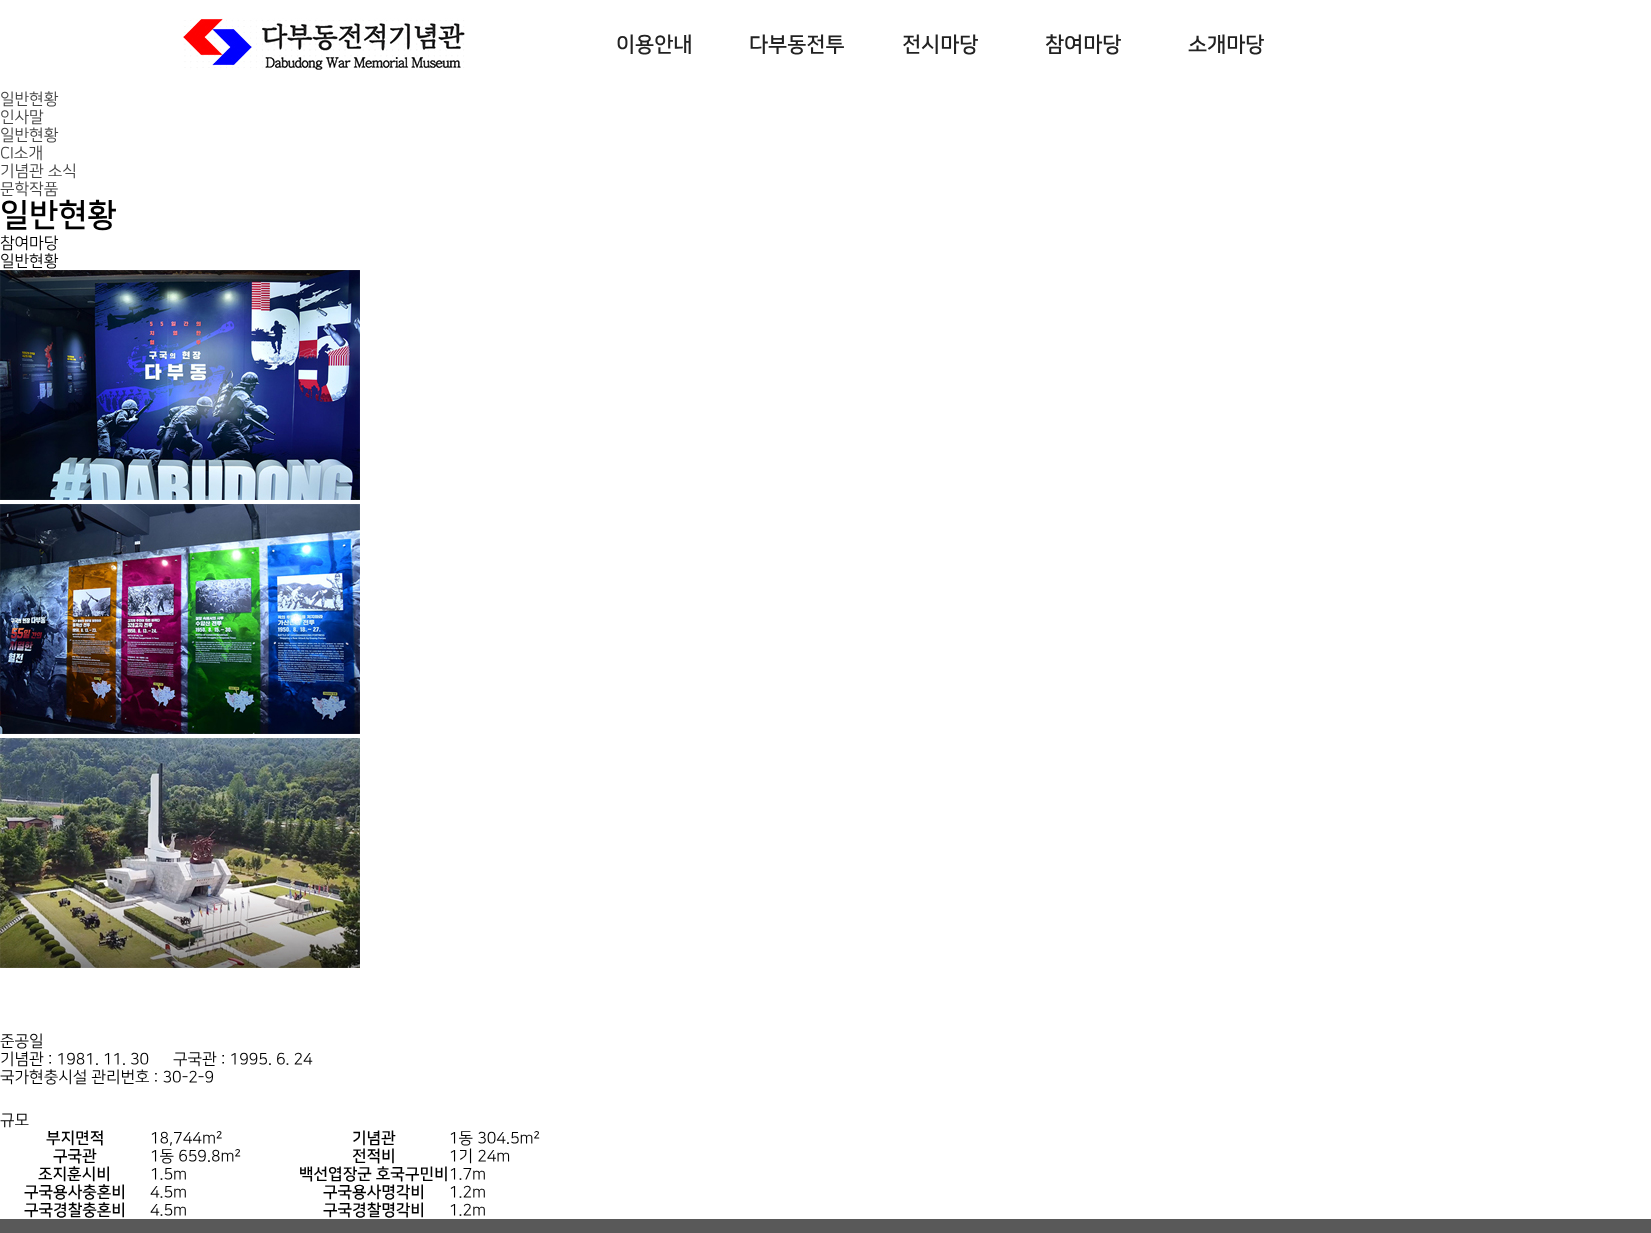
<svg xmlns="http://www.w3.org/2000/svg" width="1651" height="1233">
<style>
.a{font:bold 21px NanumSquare;fill:#222}
.b{font:16px NanumSquare;fill:#444}
.c{font:bold 32px NanumSquare;fill:#000}
.d{font:16px NanumSquare;fill:#000}
.e{font:bold 16px NanumSquare;fill:#000}
</style>
<rect width="100%" height="100%" fill="#fff"/>
<image href="1.png" x="183" y="18" width="282" height="52"/>
<image href="2.png" x="0" y="270" width="360" height="230"/>
<image href="3.png" x="0" y="504" width="360" height="230"/>
<image href="4.png" x="0" y="738" width="360" height="230"/>
<path fill="#595959" d="M0 1219h1651v14H0z"/>
<text class="a" x="616" y="51">이용안내</text>
<text class="a" x="749" y="51">다부동전투</text>
<text class="a" x="902" y="51">전시마당</text>
<text class="a" x="1045" y="51">참여마당</text>
<text class="a" x="1188" y="51">소개마당</text>
<text class="b" x="0" y="104">일반현황</text>
<text class="b" x="0" y="122">인사말</text>
<text class="b" x="0" y="140">일반현황</text>
<text class="b" x="0" y="158">CI소개</text>
<text class="b" x="0" y="176">기념관 소식</text>
<text class="b" x="0" y="194">문학작품</text>
<text class="c" x="0" y="225">일반현황</text>
<text class="d" x="0" y="248">참여마당</text>
<text class="d" x="0" y="266">일반현황</text>
<text class="d" x="0" y="1046">준공일</text>
<text class="d" x="0" y="1064">기념관 : 1981. 11. 30</text>
<text class="d" x="173" y="1064">구국관 : 1995. 6. 24</text>
<text class="d" x="0" y="1082">국가현충시설 관리번호 : 30-2-9</text>
<text class="d" x="0" y="1125">규모</text>
<text class="e" x="46" y="1143">부지면적</text>
<text class="d" x="150" y="1143">18,744m²</text>
<text class="e" x="352" y="1143">기념관</text>
<text class="d" x="449" y="1143">1동 304.5m²</text>
<text class="e" x="53" y="1161">구국관</text>
<text class="d" x="150" y="1161">1동 659.8m²</text>
<text class="e" x="352" y="1161">전적비</text>
<text class="d" x="449" y="1161">1기 24m</text>
<text class="e" x="38" y="1179">조지훈시비</text>
<text class="d" x="150" y="1179">1.5m</text>
<text class="e" x="299" y="1179">백선엽장군 호국구민비</text>
<text class="d" x="449" y="1179">1.7m</text>
<text class="e" x="24" y="1197">구국용사충혼비</text>
<text class="d" x="150" y="1197">4.5m</text>
<text class="e" x="323" y="1197">구국용사명각비</text>
<text class="d" x="449" y="1197">1.2m</text>
<text class="e" x="24" y="1215">구국경찰충혼비</text>
<text class="d" x="150" y="1215">4.5m</text>
<text class="e" x="323" y="1215">구국경찰명각비</text>
<text class="d" x="449" y="1215">1.2m</text>
</svg>
